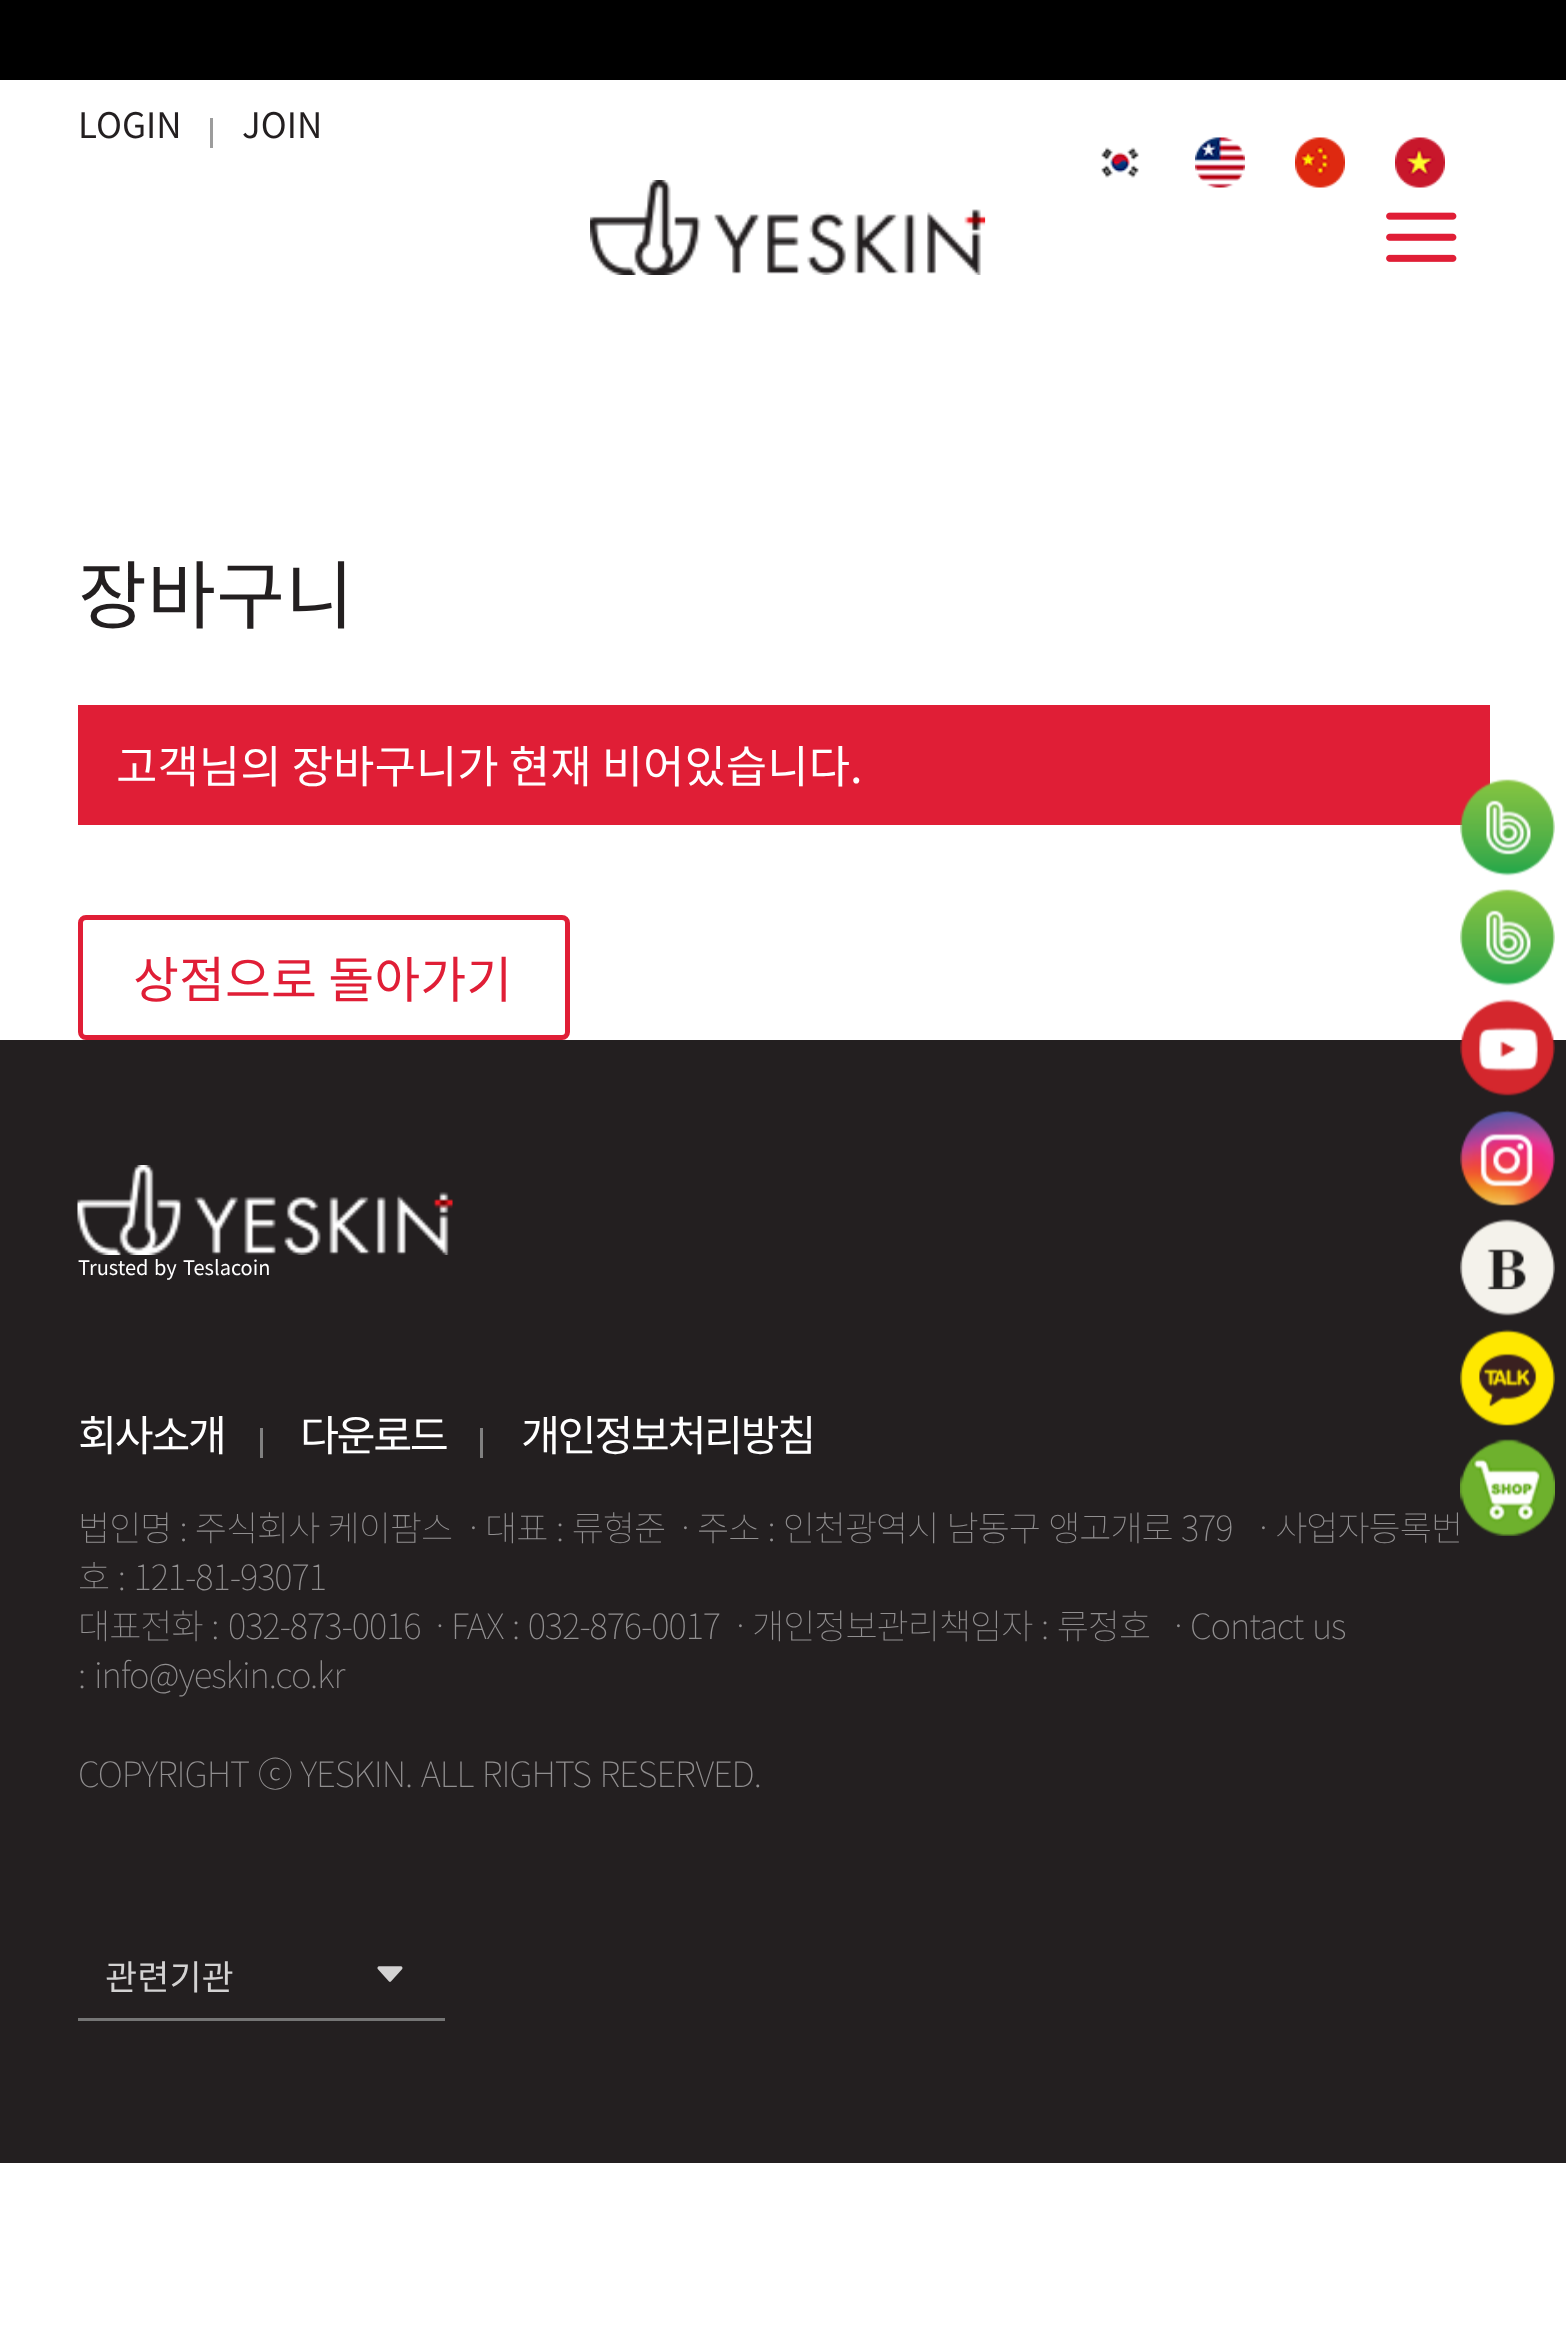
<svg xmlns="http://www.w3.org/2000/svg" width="1566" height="2327">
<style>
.a{font:35px Noto Sans KR;fill:#231f20}
.b{font:75px Noto Sans KR;fill:#231f20}
.c{font:45px Noto Sans KR;fill:#fff}
.d{font:50px Noto Sans KR;fill:#e01e36}
.e{font:20px Noto Sans KR;fill:#fff}
.f{font:42.5px Noto Sans KR;letter-spacing:-2.5px;fill:#fff}
.g{font:100 35px Noto Sans KR;letter-spacing:-1.05px;fill:#918f90}
.h{font:35px Noto Sans KR;fill:#d3d2d2}
</style>
<rect width="100%" height="100%" fill="#fff"/>
<path fill="#000" d="M0 0h1566v80H0z"/>
<path fill="#9c9c9c" d="M210 118h3v30H210z"/>
<image href="1.png" x="1101" y="147" width="38" height="31"/>
<image href="2.png" x="1195" y="137" width="50" height="51"/>
<image href="3.png" x="1295" y="137" width="50" height="51"/>
<image href="4.png" x="1395" y="137" width="50" height="51"/>
<image href="5.png" x="590" y="180" width="396" height="95"/>
<image href="6.png" x="1386" y="212" width="71" height="50"/>
<path fill="#e01e36" d="M78 705h1412v120H78z"/>
<rect fill="none" stroke="#e01e36" stroke-width="5" x="80.5" y="917.5" width="487" height="120" rx="5.5"/>
<path fill="#231f20" d="M0 1040h1566v1123H0z"/>
<image href="7.png" x="77" y="1165" width="376" height="90"/>
<path fill="#808080" d="M260 1428h3v30H260z"/>
<path fill="#808080" d="M480 1428h3v30H480z"/>
<path fill="#757575" d="M78 2018h367v3H78z"/>
<image href="8.png" x="377" y="1966" width="26" height="16"/>
<image href="9.png" x="1460" y="779" width="95" height="97"/>
<image href="10.png" x="1460" y="889" width="95" height="97"/>
<image href="11.png" x="1460" y="999" width="95" height="97"/>
<image href="12.png" x="1460" y="1110" width="95" height="96"/>
<image href="13.png" x="1460" y="1219" width="95" height="97"/>
<image href="14.png" x="1460" y="1329" width="95" height="97"/>
<image href="15.png" x="1460" y="1439" width="95" height="97"/>
<text class="a" x="78" y="138">LOGIN</text>
<text class="a" x="242" y="138">JOIN</text>
<text class="b" x="78" y="623">장바구니</text>
<text class="c" x="116" y="783">고객님의 장바구니가 현재 비어있습니다.</text>
<text class="d" x="133" y="998">상점으로 돌아가기</text>
<text class="e" x="78" y="1275" word-spacing="1">Trusted by</text>
<text class="e" x="183" y="1275">Teslacoin</text>
<text class="f" x="78" y="1451">회사소개</text>
<text class="f" x="300" y="1451">다운로드</text>
<text class="f" x="521" y="1451">개인정보처리방침</text>
<text class="g" x="78" y="1541" word-spacing="1.5">법인명 : 주식회사 케이팜스</text>
<text class="g" x="454" y="1541">ㆍ</text>
<text class="g" x="485" y="1541" word-spacing="2">대표 : 류형준</text>
<text class="g" x="666" y="1541">ㆍ</text>
<text class="g" x="697" y="1541" word-spacing="1.5">주소 : 인천광역시 남동구 앵고개로 379</text>
<text class="g" x="1244" y="1541">ㆍ사업자등록번</text>
<text class="g" x="78" y="1590" word-spacing="2">호 : 121-81-93071</text>
<text class="g" x="78" y="1639" word-spacing="2">대표전화 :</text>
<text class="g" x="228" y="1639">032-873-0016ㆍ</text>
<text class="g" x="451" y="1639" word-spacing="2">FAX : 032-876-0017</text>
<text class="g" x="721" y="1639">ㆍ</text>
<text class="g" x="752" y="1639" word-spacing="2">개인정보관리책임자 : 류정호</text>
<text class="g" x="1159" y="1639">ㆍ</text>
<text class="g" x="1190" y="1639" word-spacing="2">Contact us</text>
<text class="g" x="78" y="1688">:</text>
<text class="g" x="94" y="1688">info@yeskin.co.kr</text>
<text class="g" x="78" y="1787" word-spacing="2">COPYRIGHT ⓒ YESKIN. ALL RIGHTS RESERVED.</text>
<text class="h" x="105" y="1990">관련기관</text>
</svg>
